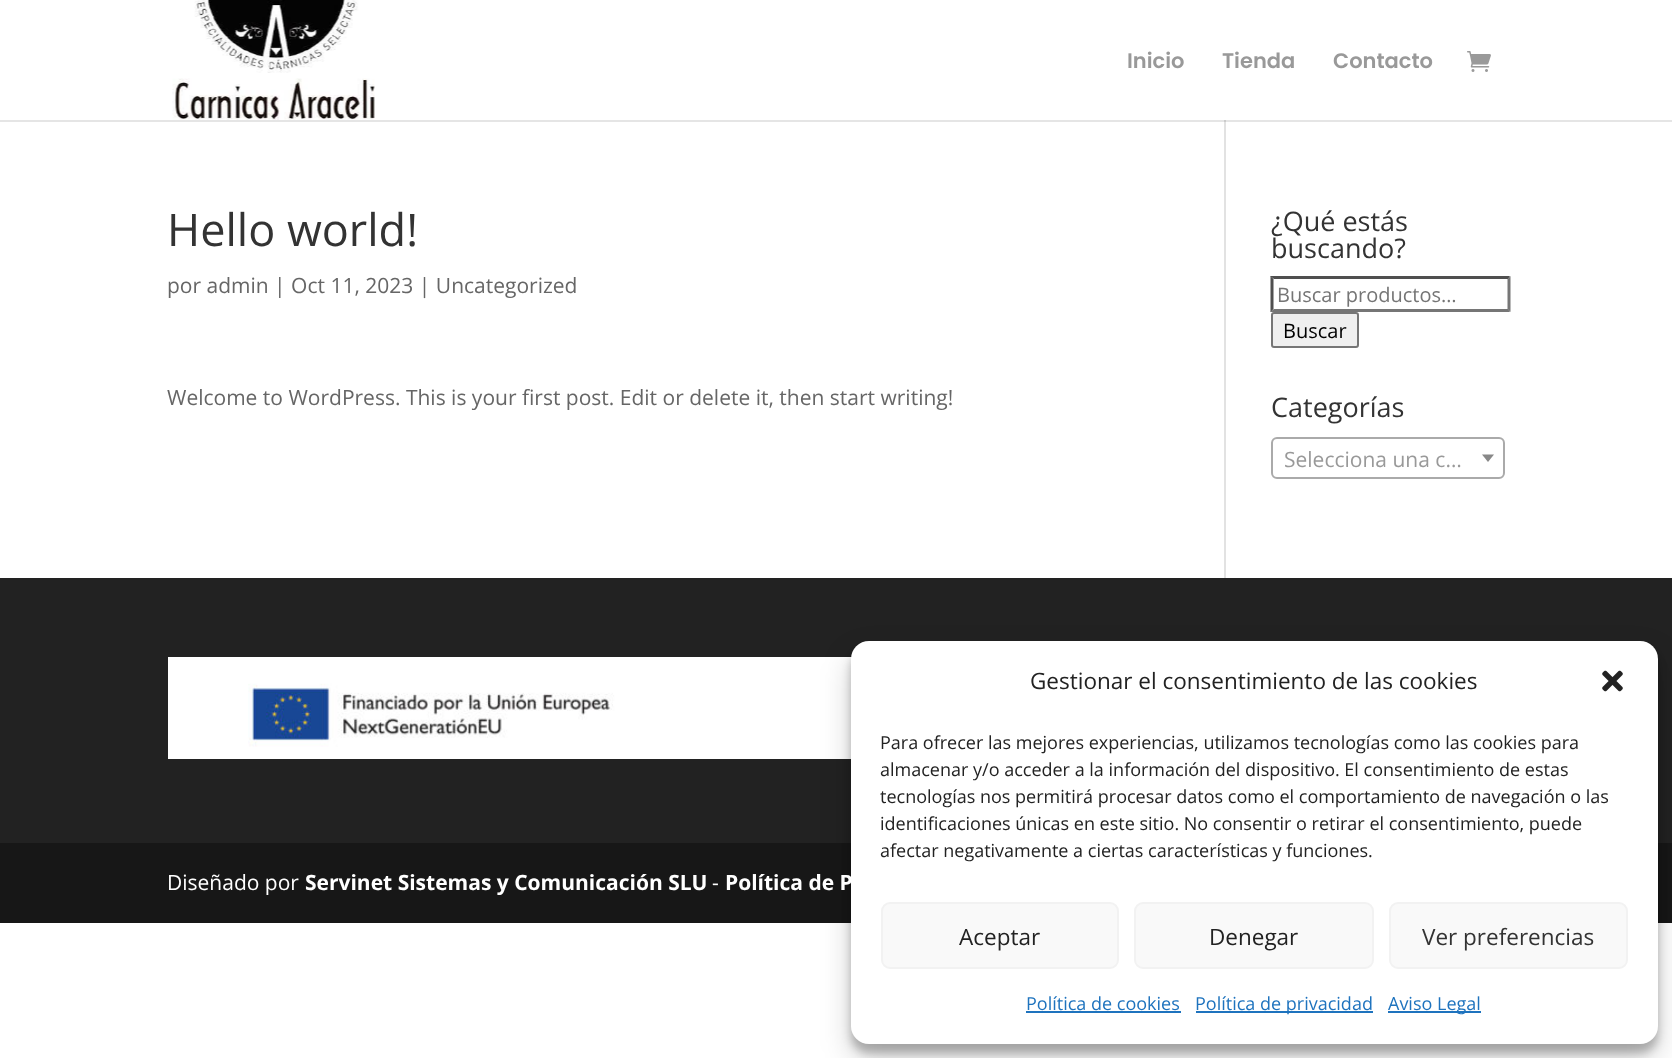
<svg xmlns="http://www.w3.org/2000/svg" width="1672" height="1058">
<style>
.a{font:600 21px Poppins;fill:#999}
.b{font:45px Open Sans;fill:#333}
.c{font:21px Open Sans;fill:#666}
.d{font:27px Open Sans;fill:#333}
.e{font:20px Open Sans;fill:#757575}
.f{font:20px Open Sans;fill:#000}
.g{font:21px Open Sans;fill:#999}
.h{font:21px Open Sans;fill:#fff}
.i{font:bold 21px Open Sans;fill:#fff}
.j{font:22.5px Open Sans;fill:#222}
.k{font:18px Open Sans;fill:#222}
.l{font:22.5px Open Sans;fill:#333}
.m{font:18px Open Sans;fill:#1e73be}
</style>
<rect width="100%" height="100%" fill="#fff"/>
<path fill="#e2e2e2" d="M1224 120h2v458H1224z"/>
<path fill="#0000001a" d="M0 120v2h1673v-120h-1v118z"/>
<image href="1.png" x="172" y="0" width="203" height="120"/>
<image href="2.png" x="1467" y="51" width="24" height="21"/>
<path fill="#4f4f4f" d="M1270 276h240l-2 3h-234z"/>
<path fill="#767676" d="M1510.5 276v36l-3-3v-30z"/>
<path fill="#767676" d="M1510 312h-240l4-3h234z"/>
<path fill="#4f4f4f" d="M1270.5 312v-36l3 3v30z"/>
<rect fill="#efefef" stroke="#767676" stroke-width="2" x="1272" y="313" width="86" height="34" rx="2"/>
<rect fill="none" stroke="#aaa" stroke-width="2" x="1272" y="438" width="232" height="40" rx="5"/>
<path fill="#888" d="M1482 454.5h12l-6 7.5z"/>
<path fill="#222" d="M0 578h1672v265H0z"/>
<image href="3.png" x="168" y="657" width="684" height="102"/>
<path fill="#171717" d="M0 843h1672v80H0z"/>
<rect fill="#0000003b" filter="blur(4.5px)" x="851" y="650" width="807" height="403" rx="18"/>
<rect fill="#00000030" filter="blur(15px)" x="851" y="656" width="807" height="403" rx="18"/>
<rect fill="#fff" x="851" y="641" width="807" height="403" rx="18"/>
<image href="4.png" x="1602" y="670" width="21" height="22"/>
<rect fill="#f9f9f9" stroke="#f2f2f2" stroke-width="2" x="882" y="903" width="236" height="65" rx="8"/>
<rect fill="#f9f9f9" stroke="#f2f2f2" stroke-width="2" x="1135" y="903" width="238" height="65" rx="8"/>
<rect fill="#f9f9f9" stroke="#f2f2f2" stroke-width="2" x="1390" y="903" width="237" height="65" rx="8"/>
<path fill="#1e73be" d="M1026 1011h155v2H1026z"/>
<path fill="#1e73be" d="M1196 1011h177v2H1196z"/>
<path fill="#1e73be" d="M1388 1011h93v2H1388z"/>
<text class="a" x="1127" y="68">Inicio</text>
<text class="a" x="1222" y="68">Tienda</text>
<text class="a" x="1333" y="68">Contacto</text>
<text class="b" x="167" y="246">Hello world!</text>
<text class="c" x="167" y="293">por admin | Oct 11, 2023 | Uncategorized</text>
<text class="c" x="167" y="405">Welcome to WordPress. This is your first post. Edit or delete it, then start writing!</text>
<text class="d" x="1271" y="231">¿Qué estás</text>
<text class="d" x="1271" y="258">buscando?</text>
<text class="e" x="1277" y="302">Buscar productos…</text>
<text class="f" x="1283" y="338">Buscar</text>
<text class="d" x="1271" y="417">Categorías</text>
<text class="g" x="1284" y="467">Selecciona una c…</text>
<text class="h" x="167" y="890">Diseñado por</text>
<text class="i" x="305" y="890">Servinet Sistemas y Comunicación SLU</text>
<text class="h" x="712" y="890">-</text>
<text class="i" x="725" y="890">Política de P</text>
<text class="j" x="1030" y="689">Gestionar el consentimiento de las cookies</text>
<text class="k" x="880" y="749">Para ofrecer las mejores experiencias, utilizamos tecnologías como las cookies para</text>
<text class="k" x="880" y="776">almacenar y/o acceder a la información del dispositivo. El consentimiento de estas</text>
<text class="k" x="880" y="803">tecnologías nos permitirá procesar datos como el comportamiento de navegación o las</text>
<text class="k" x="880" y="830">identificaciones únicas en este sitio. No consentir o retirar el consentimiento, puede</text>
<text class="k" x="880" y="857">afectar negativamente a ciertas características y funciones.</text>
<text class="j" x="959" y="945">Aceptar</text>
<text class="j" x="1209" y="945">Denegar</text>
<text class="l" x="1422" y="945">Ver preferencias</text>
<text class="m" x="1026" y="1010">Política de cookies</text>
<text class="m" x="1195" y="1010">Política de privacidad</text>
<text class="m" x="1388" y="1010">Aviso Legal</text>
</svg>
